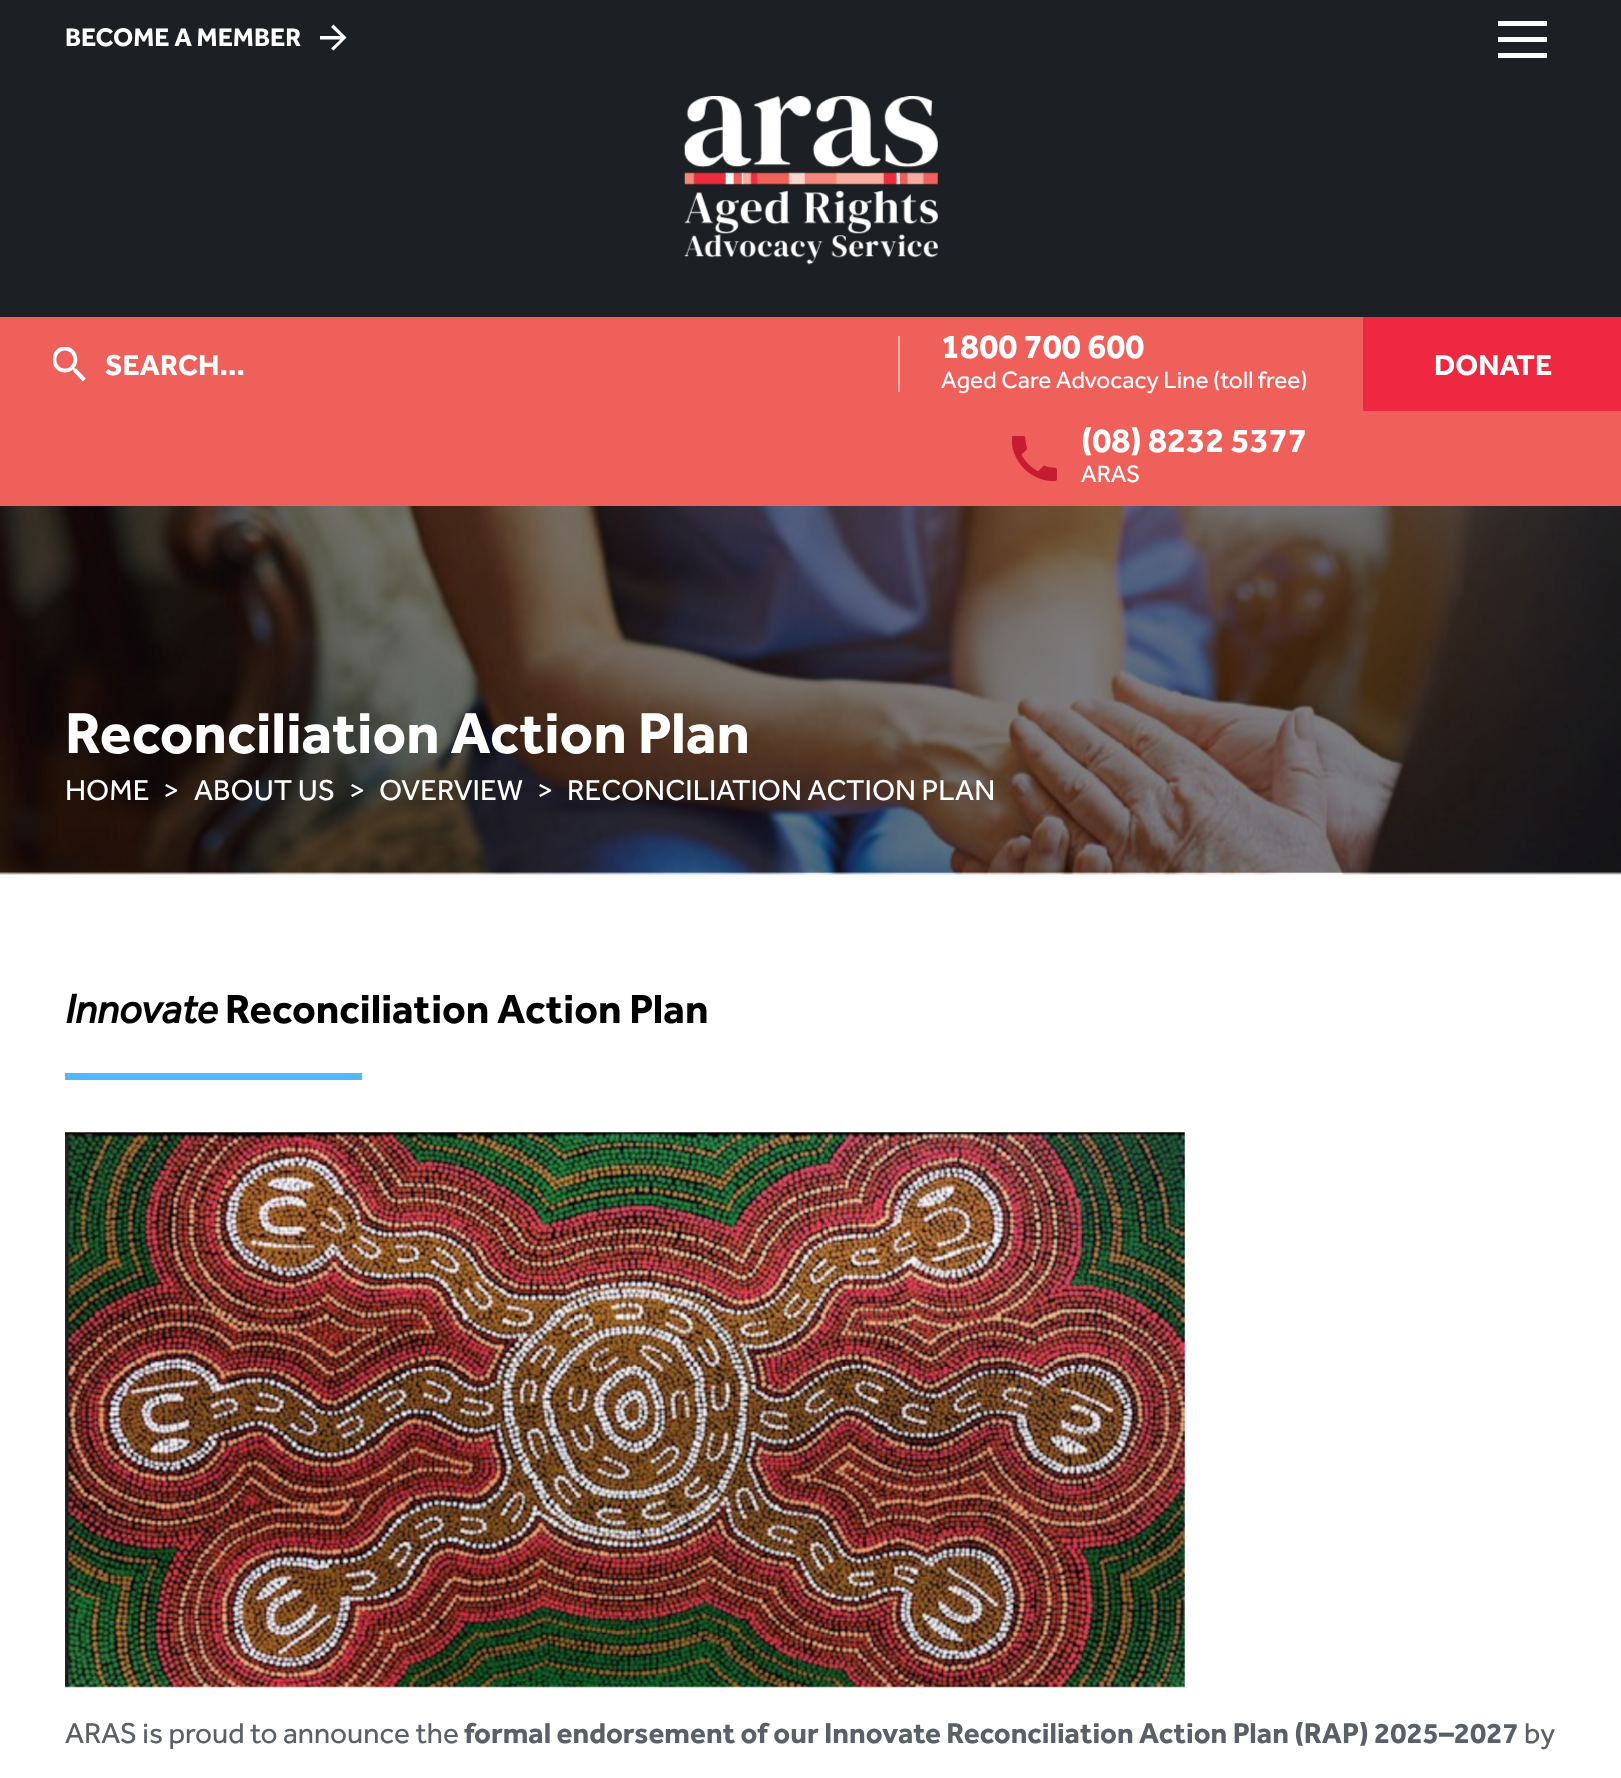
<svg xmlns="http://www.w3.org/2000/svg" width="1621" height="1778">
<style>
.a{font:bold 26.25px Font;fill:#fff}
.b{font:bold 29.75px Font;fill:#fff}
.c{font:bold 35px Font;fill:#fff}
.d{font:24.5px Font;fill:#fff}
.e{font:bold 59.5px Font;fill:#fff}
.f{font:29.75px Font;fill:#fff}
.g{font:italic bold 42px Font;fill:#000}
.h{font:bold 42px Font;fill:#000}
.i{font:29.75px Font;fill:#5b6068}
.j{font:bold 29.75px Font;fill:#5b6068}
</style>
<rect width="100%" height="100%" fill="#1c1f23"/>
<path fill="#fff" fill-rule="evenodd" d="M320 39.5h20.5l-9.5 9l2.5 2l13-13l-13-13l-2.5 2.5l9.5 9h-20.5z"/>
<path fill="#fff" d="M1498 21h49v5H1498z"/>
<path fill="#fff" d="M1498 37h49v5H1498z"/>
<path fill="#fff" d="M1498 53h49v5H1498z"/>
<path fill="#fff" d="M0 872h1621v906H0z"/>
<image href="1.png" x="684" y="96" width="254" height="169"/>
<path fill="#ef605b" d="M0 317h1621v189H0z"/>
<image href="2.png" x="53" y="347" width="33" height="35"/>
<path fill="#f7b0ad" d="M898 336h2v56H898z"/>
<image href="3.png" x="1012" y="436" width="45" height="45"/>
<path fill="#ee2841" d="M1363 317h258v94H1363z"/>
<image href="4.png" x="0" y="506" width="1621" height="369"/>
<path fill="#53b7ff" d="M65 1073h297v7H65z"/>
<image href="5.png" x="65" y="1132" width="1120" height="556"/>
<text class="a" x="65" y="46">BECOME A MEMBER</text>
<text class="b" x="105" y="375">SEARCH...</text>
<text class="c" x="941" y="358">1800 700 600</text>
<text class="d" x="941" y="388">Aged Care Advocacy Line (toll free)</text>
<text class="c" x="1081" y="452">(08) 8232 5377</text>
<text class="d" x="1081" y="482">ARAS</text>
<text class="b" x="1434" y="375">DONATE</text>
<text class="e" x="65" y="753">Reconciliation Action Plan</text>
<text class="f" x="65" y="800">HOME</text>
<text class="f" x="163" y="800">&gt;</text>
<text class="f" x="194" y="800">ABOUT US</text>
<text class="f" x="349" y="800">&gt;</text>
<text class="f" x="379" y="800">OVERVIEW</text>
<text class="f" x="537" y="800">&gt;</text>
<text class="f" x="567" y="800">RECONCILIATION ACTION PLAN</text>
<text class="g" x="65" y="1023">Innovate</text>
<text class="h" x="225" y="1023">Reconciliation Action Plan</text>
<text class="i" x="65" y="1743">ARAS is proud to announce the</text>
<text class="j" x="464" y="1743">formal endorsement of our Innovate Reconciliation Action Plan (RAP) 2025–2027</text>
<text class="i" x="1524" y="1743">by</text>
</svg>
